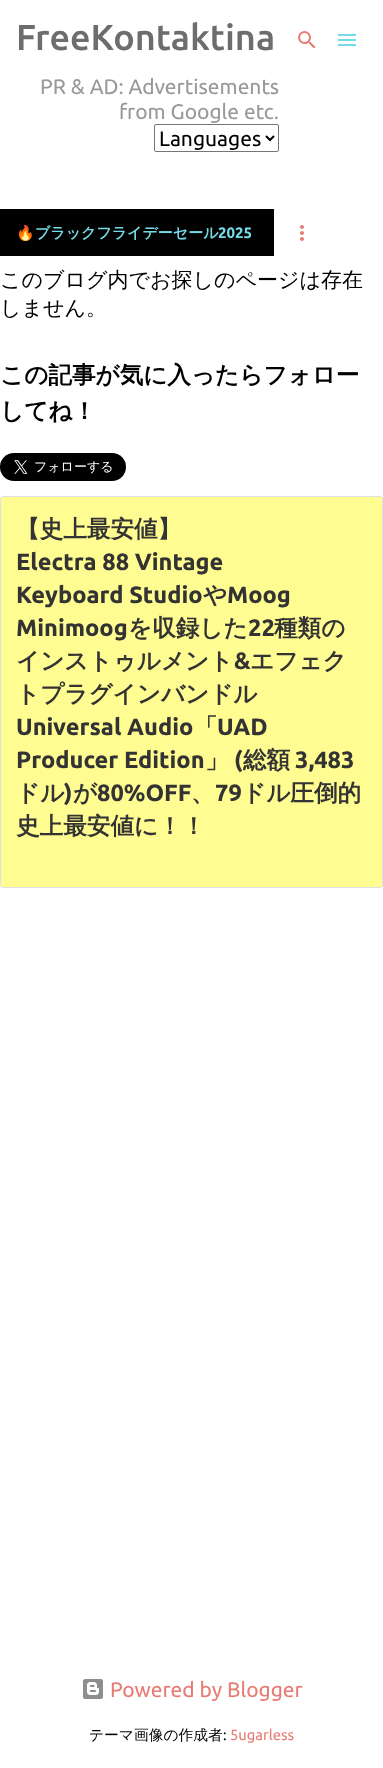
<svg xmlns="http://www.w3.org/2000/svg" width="383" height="1768">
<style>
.a{font:500 36px Ubuntu;fill:#6d6d6d}
.b{font:21px Ubuntu;fill:#999}
.c{font:21px Ubuntu;fill:#000}
.d{font:bold 15px Noto Color Emoji;fill:#73dce6}
.e{font:bold 15px WenQuanYi Zen Hei;fill:#73dce6}
.f{font:bold 15px Ubuntu;fill:#73dce6}
.g{font:500 21px WenQuanYi Zen Hei;fill:#000}
.h{font:bold 23.6px WenQuanYi Zen Hei;fill:#000}
.i{font:bold 23.6px WenQuanYi Zen Hei;fill:#333}
.j{font:bold 23.6px Ubuntu;fill:#333}
.k{font:21px Ubuntu;fill:#e67c73}
.l{font:500 14.75px WenQuanYi Zen Hei;fill:#000}
.m{font:14.75px Ubuntu;fill:#000}
.n{font:14.75px Ubuntu;fill:#e67c73}
</style>
<rect width="100%" height="100%" fill="#fff"/>
<rect fill="none" stroke="#767676" x="154.5" y="124.5" width="124" height="27" rx="1.5"/>
<path fill="none" stroke="#000" stroke-width="2" d="M266 136l4 4l4-4"/>
<image href="1.png" x="298" y="31" width="18" height="18"/>
<image href="2.png" x="338" y="34" width="18" height="12"/>
<path fill="#000" d="M0 209h274v47H0z"/>
<image href="3.png" x="300" y="225" width="4" height="16"/>
<image href="4.png" x="0" y="453" width="126" height="28"/>
<rect fill="#fffd91" stroke="#e0e0e0" x="0.5" y="496.5" width="382" height="391" rx="2.5"/>
<image href="5.png" x="83" y="1679" width="20" height="20"/>
<text class="a" x="16" y="50">FreeKontaktina</text>
<text class="b" x="40" y="94">PR &amp; AD: Advertisements</text>
<text class="b" x="119" y="119">from Google etc.</text>
<text class="c" x="159" y="146">Languages</text>
<text class="d" x="16" y="238">🔥</text>
<text class="e" x="35" y="238">ブラックフライデーセール</text>
<text class="f" x="218" y="238">2025</text>
<text class="g" x="0" y="287">このブログ内でお探しのページは存在</text>
<text class="g" x="0" y="315">しません。</text>
<text class="h" x="0" y="383">この記事が気に入ったらフォロー</text>
<text class="h" x="0" y="419">してね！</text>
<text class="i" x="16" y="537">【史上最安値】</text>
<text class="j" x="16" y="570">Electra 88 Vintage</text>
<text class="j" x="16" y="603">Keyboard Studio</text>
<text class="i" x="203" y="603">や</text>
<text class="j" x="227" y="603">Moog</text>
<text class="j" x="16" y="636">Minimoog</text>
<text class="i" x="128" y="636">を収録した</text>
<text class="j" x="248" y="636">22</text>
<text class="i" x="274" y="636">種類の</text>
<text class="i" x="16" y="669">インストゥルメント</text>
<text class="j" x="234" y="669">&amp;</text>
<text class="i" x="250" y="669">エフェク</text>
<text class="i" x="16" y="702">トプラグインバンドル</text>
<text class="j" x="16" y="735">Universal Audio</text>
<text class="i" x="194" y="735">「</text>
<text class="j" x="217" y="735">UAD</text>
<text class="j" x="16" y="768">Producer Edition</text>
<text class="i" x="205" y="768">」</text>
<text class="j" x="234" y="768">(</text>
<text class="i" x="243" y="768">総額</text>
<text class="j" x="295" y="768">3,483</text>
<text class="i" x="16" y="801">ドル</text>
<text class="j" x="64" y="801">)</text>
<text class="i" x="73" y="801">が</text>
<text class="j" x="97" y="801">80%OFF</text>
<text class="i" x="191" y="801">、</text>
<text class="j" x="215" y="801">79</text>
<text class="i" x="242" y="801">ドル圧倒的</text>
<text class="i" x="16" y="834">史上最安値に！！</text>
<text class="k" x="110" y="1697">Powered by Blogger</text>
<text class="l" x="89" y="1740">テーマ画像の作成者</text>
<text class="m" x="223" y="1740">:</text>
<text class="n" x="230" y="1740">5ugarless</text>
</svg>
